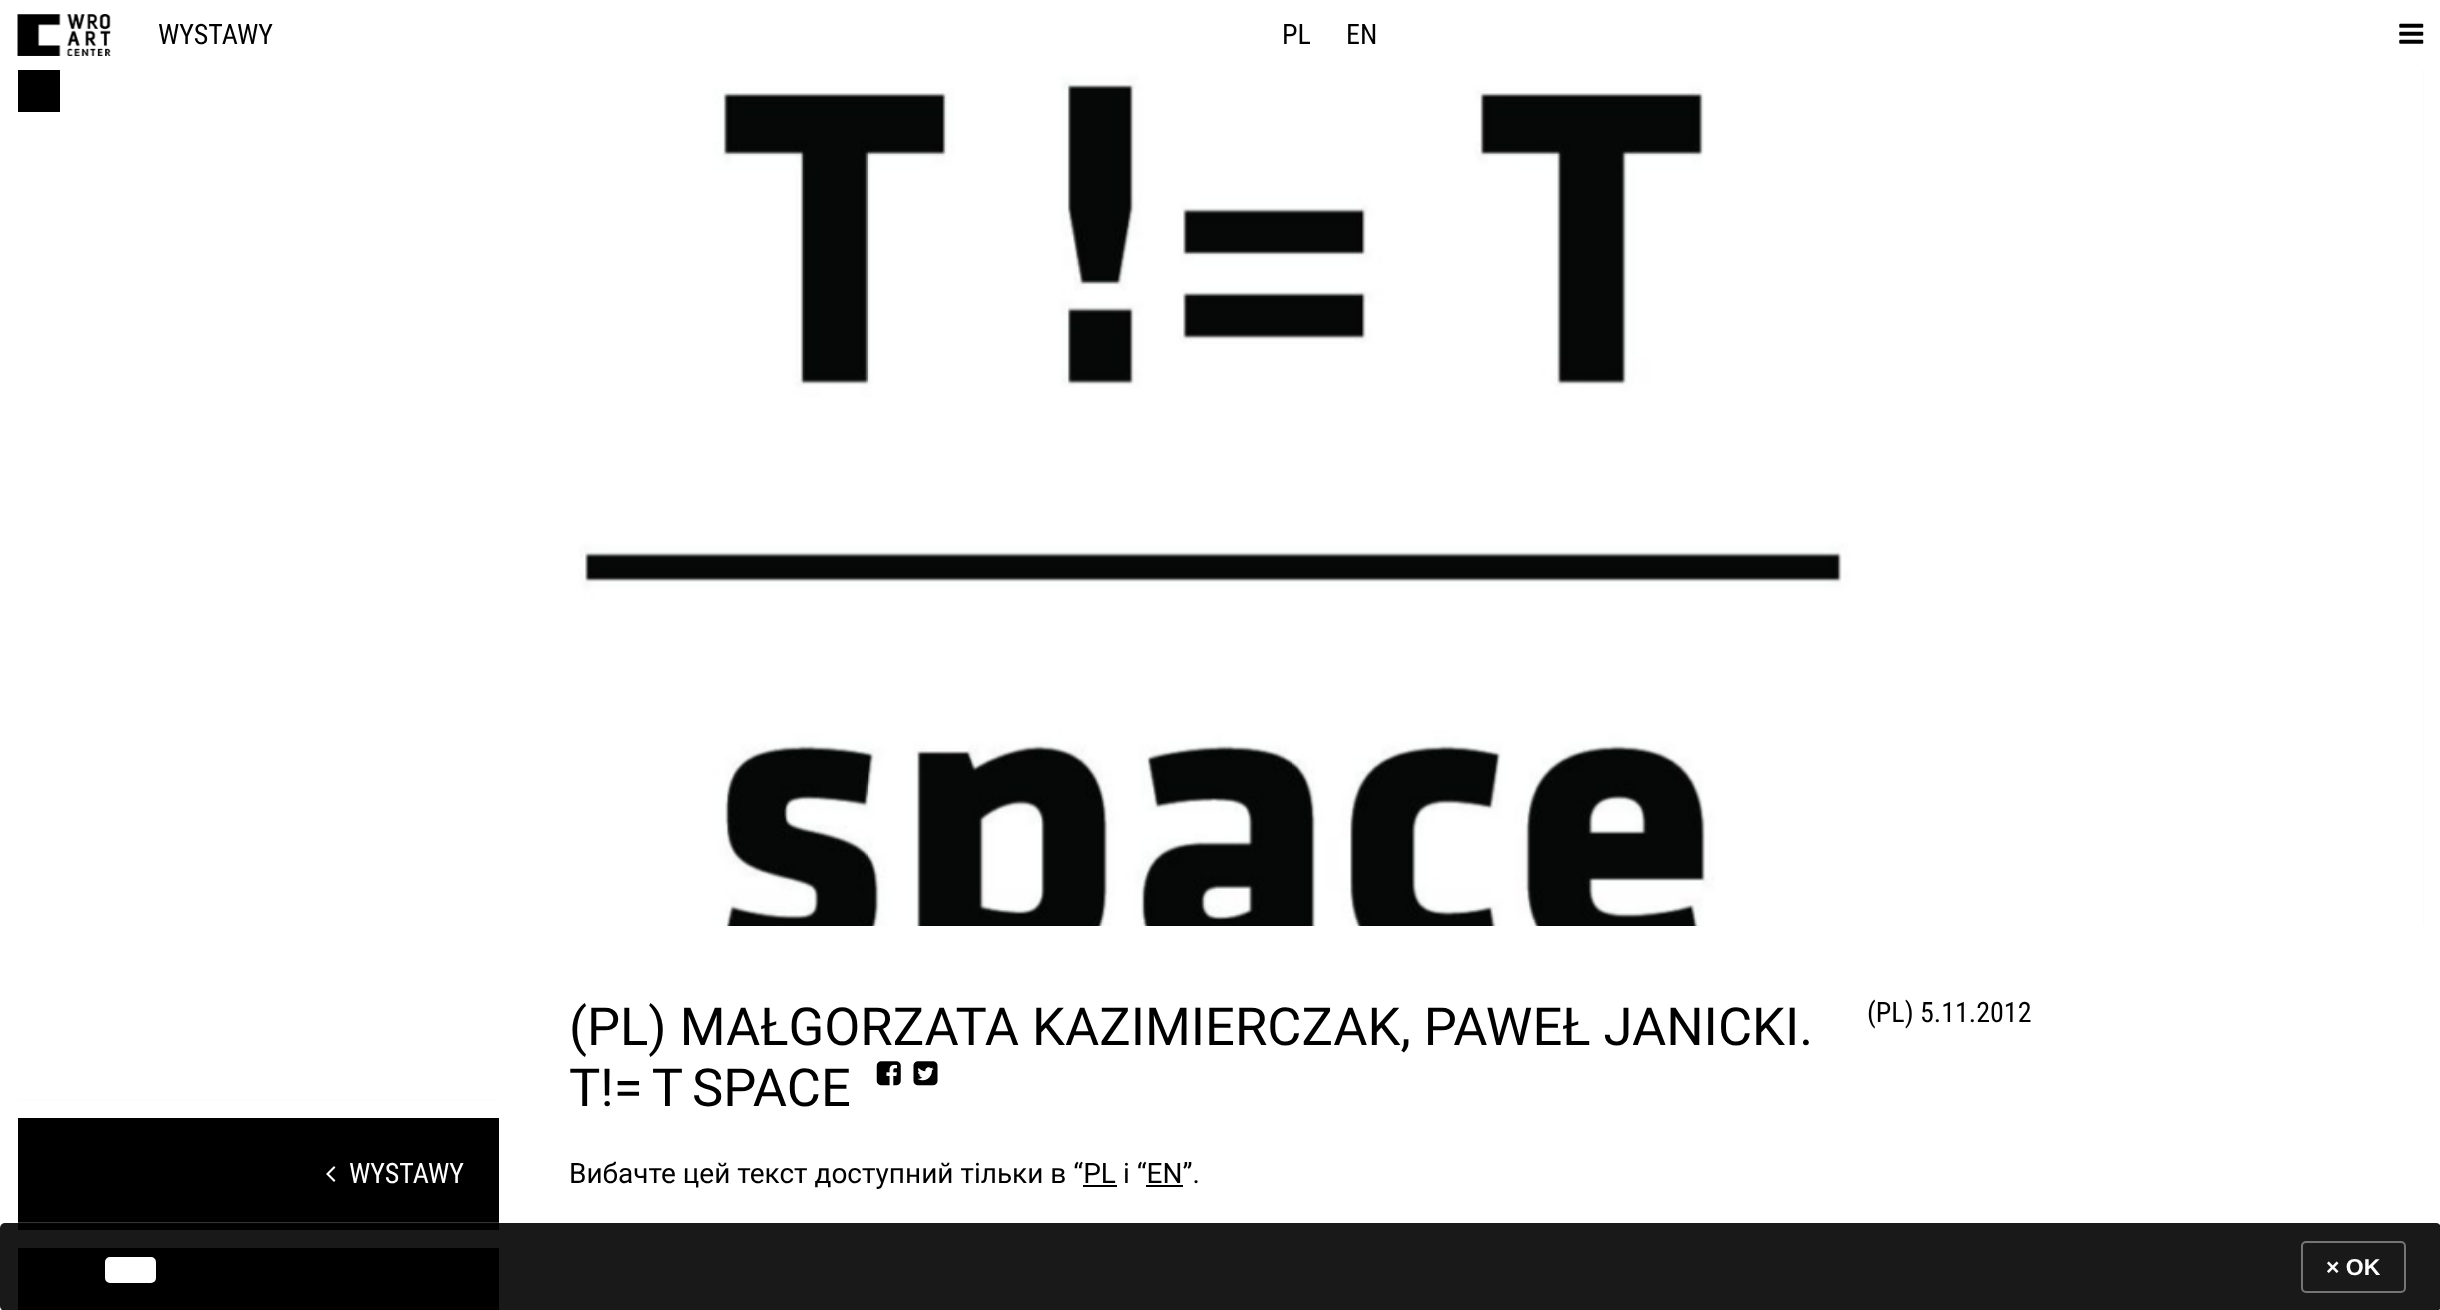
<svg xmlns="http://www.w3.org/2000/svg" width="2440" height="1310">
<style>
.a{font:28px Roboto Condensed;fill:#000}
.b{font:52.5px Roboto;fill:#000}
.c{font:28px Roboto Condensed;fill:#fff}
.d{font:28px Roboto;fill:#000}
.e{font:bold 23px Liberation Sans;fill:#fff}
</style>
<rect width="100%" height="100%" fill="#fff"/>
<image href="1.png" x="17" y="14" width="94" height="42"/>
<image href="2.png" x="2399" y="23" width="25" height="21"/>
<path fill="#f5f5f5" d="M18 70h2406v1031H18z"/>
<image href="3.png" x="18" y="70" width="2406" height="1031"/>
<path fill="#000" d="M18 70h42v42H18z"/>
<path fill="#fff" d="M499 926h1925v175H499z"/>
<image href="4.png" x="876" y="1061" width="25" height="25"/>
<image href="5.png" x="913" y="1061" width="25" height="25"/>
<path fill="#000" d="M18 1118h481v112H18z"/>
<path fill="#333" d="M18 1222h481v2H18z"/>
<image href="6.png" x="326" y="1166" width="10" height="16"/>
<path fill="#000" d="M18 1248h481v62H18z"/>
<path fill="#000" d="M1083 1185h34v2H1083z"/>
<path fill="#000" d="M1146 1185h37v2H1146z"/>
<rect fill="#000000e6" y="1223" width="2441" height="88" rx="5"/>
<rect fill="#fff" stroke="#fff" stroke-width="2" x="106" y="1258" width="49" height="24" rx="4"/>
<rect fill="none" stroke="#757575" stroke-width="2" x="2302" y="1242" width="103" height="50" rx="4"/>
<text class="a" x="158" y="44">WYSTAWY</text>
<text class="a" x="1282" y="44">PL</text>
<text class="a" x="1346" y="44">EN</text>
<text class="b" x="569" y="1045">(PL) MAŁGORZATA KAZIMIERCZAK, PAWEŁ JANICKI.</text>
<text class="b" x="569" y="1106" word-spacing="-3">T!= T SPACE</text>
<text class="a" x="1867" y="1022">(PL) 5.11.2012</text>
<text class="c" x="349" y="1183">WYSTAWY</text>
<text class="d" x="569" y="1183">Вибачте цей текст доступний тільки в “PL і “EN”.</text>
<text class="e" x="2326" y="1275">× OK</text>
</svg>
